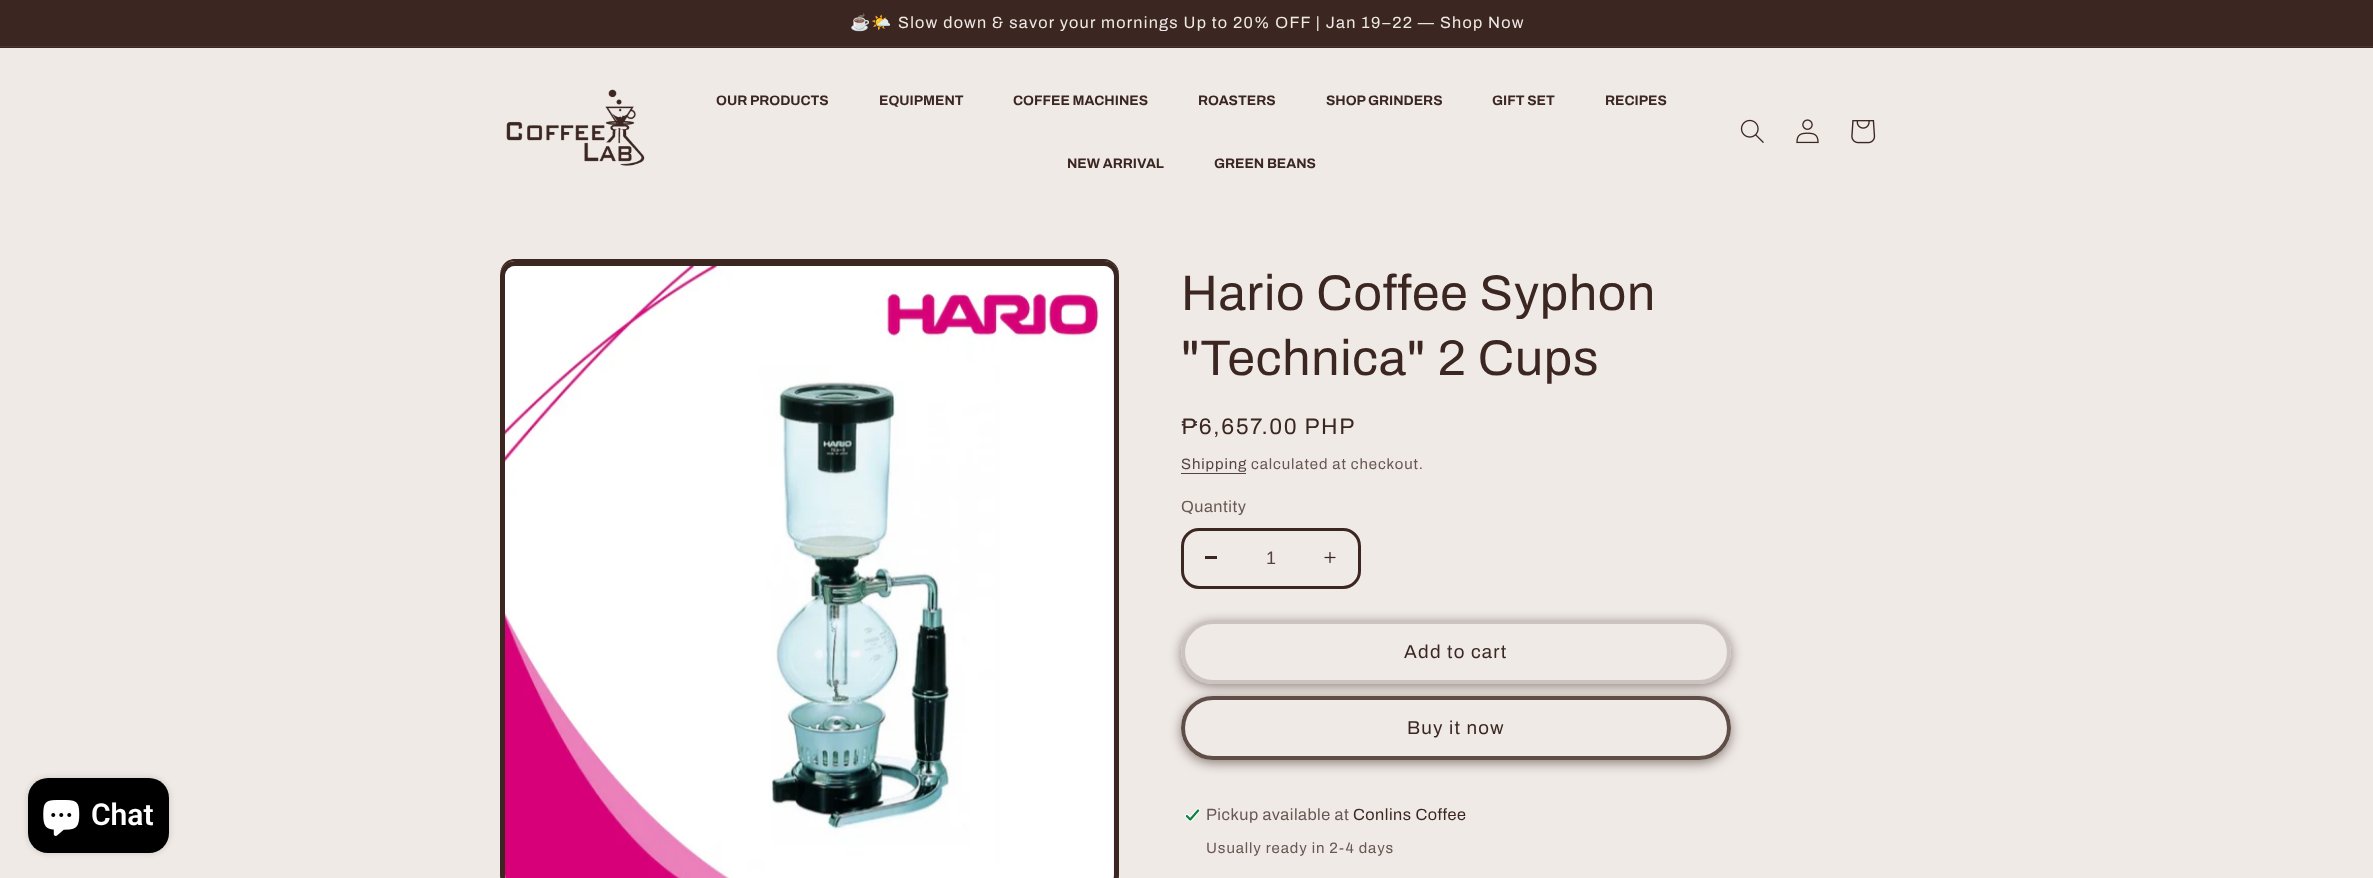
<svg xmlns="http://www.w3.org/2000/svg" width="2373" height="878">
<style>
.a{font:16.25px Noto Color Emoji;letter-spacing:1.25px;fill:#efeae6}
.b{font:16.25px Archivo;letter-spacing:1.25px;fill:#efeae6}
.c{font:bold 13.75px Archivo;fill:#3b2621}
.d{font:600 30px Roboto;fill:#fff}
.e{font:50px Archivo;letter-spacing:0.75px;fill:#3b2621}
.f{font:22.5px Archivo;letter-spacing:1.6px;fill:#3b2621}
.g{font:15px Archivo;letter-spacing:0.9px;fill:#56433f}
.h{font:15px Archivo;letter-spacing:0.9px;fill:#685752}
.i{font:16.25px Archivo;letter-spacing:0.5px;fill:#685752}
.j{font:18px Liberation Sans;fill:#56433f}
.k{font:18.75px Archivo;letter-spacing:1.25px;fill:#3b2621}
.l{font:16.25px Archivo;letter-spacing:0.5px;fill:#3b2621}
</style>
<rect width="100%" height="100%" fill="#efeae6"/>
<path fill="#3b2621" d="M0 0h2373v48H0z"/>
<path fill="#493631" d="M0 46h2373v1H0z"/>
<image href="1.png" x="506" y="89" width="139" height="77"/>
<image href="2.png" x="1740" y="119" width="24" height="24"/>
<image href="3.png" x="1796" y="119" width="23" height="25"/>
<image href="4.png" x="1851" y="120" width="25" height="24"/>
<rect fill="#00000026" filter="blur(3px)" x="28" y="778" width="141" height="75" rx="20"/>
<rect fill="#000" x="28" y="778" width="141" height="75" rx="20"/>
<image href="5.png" x="43" y="800" width="37" height="36"/>
<path fill="#3b2621" d="M515 259c-10 0-15 8-15 17c0-8 7-15 15-15h589c8 0 15 7 15 15v600v-602c0-8-7-15-15-15z"/>
<rect fill="#efeae6" stroke="#3b2621" stroke-width="5" x="502.5" y="263.5" width="614" height="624" rx="12.5"/>
<image href="6.png" x="505" y="266" width="609" height="612"/>
<path fill="#56433f" d="M1181 473h65v1H1181z"/>
<path fill="#3b2621" d="M1205 556h12v3H1205z"/>
<image href="7.png" x="1324" y="551" width="12" height="13"/>
<rect fill="none" stroke="#3b2621" stroke-width="3" x="1182.5" y="529.5" width="177" height="58" rx="16.5"/>
<rect fill="#3b26218c" filter="blur(6px)" x="1181" y="623" width="550" height="63" rx="31.5"/>
<rect fill="#3b26218c" filter="blur(6px)" x="1181" y="699" width="550" height="64" rx="32"/>
<rect fill="#efeae6" x="1181" y="620" width="550" height="64" rx="32"/>
<rect fill="none" stroke="#efeae6" stroke-width="4" x="1183" y="622" width="546" height="60" rx="30"/>
<rect fill="none" stroke="#3b262133" stroke-width="4" x="1183" y="622" width="546" height="60" rx="30"/>
<rect fill="#efeae6" x="1181" y="696" width="550" height="64" rx="32"/>
<rect fill="none" stroke="#efeae6" stroke-width="4" x="1183" y="698" width="546" height="60" rx="30"/>
<rect fill="none" stroke="#3b2621cc" stroke-width="4" x="1183" y="698" width="546" height="60" rx="30"/>
<image href="8.png" x="1184" y="808" width="17" height="14"/>
<text class="a" x="850" y="28">☕🌤️</text>
<text class="b" x="898" y="28">Slow down &amp; savor your mornings Up to 20% OFF | Jan 19–22 — Shop Now</text>
<text class="c" x="716" y="105">OUR PRODUCTS</text>
<text class="c" x="879" y="105">EQUIPMENT</text>
<text class="c" x="1013" y="105">COFFEE MACHINES</text>
<text class="c" x="1198" y="105">ROASTERS</text>
<text class="c" x="1326" y="105">SHOP GRINDERS</text>
<text class="c" x="1492" y="105">GIFT SET</text>
<text class="c" x="1605" y="105">RECIPES</text>
<text class="c" x="1067" y="168">NEW ARRIVAL</text>
<text class="c" x="1214" y="168">GREEN BEANS</text>
<text class="d" x="91" y="825">Chat</text>
<text class="e" x="1181" y="310">Hario Coffee Syphon</text>
<text class="e" x="1181" y="375">"Technica" 2 Cups</text>
<text class="f" x="1181" y="434">₱6,657.00 PHP</text>
<text class="g" x="1181" y="469">Shipping</text>
<text class="h" x="1251" y="469">calculated at checkout.</text>
<text class="i" x="1181" y="512">Quantity</text>
<text class="j" x="1266" y="564">1</text>
<text class="k" x="1404" y="658">Add to cart</text>
<text class="k" x="1407" y="734">Buy it now</text>
<text class="i" x="1206" y="820">Pickup available at</text>
<text class="l" x="1353" y="820">Conlins Coffee</text>
<text class="h" x="1206" y="853">Usually ready in 2-4 days</text>
</svg>
